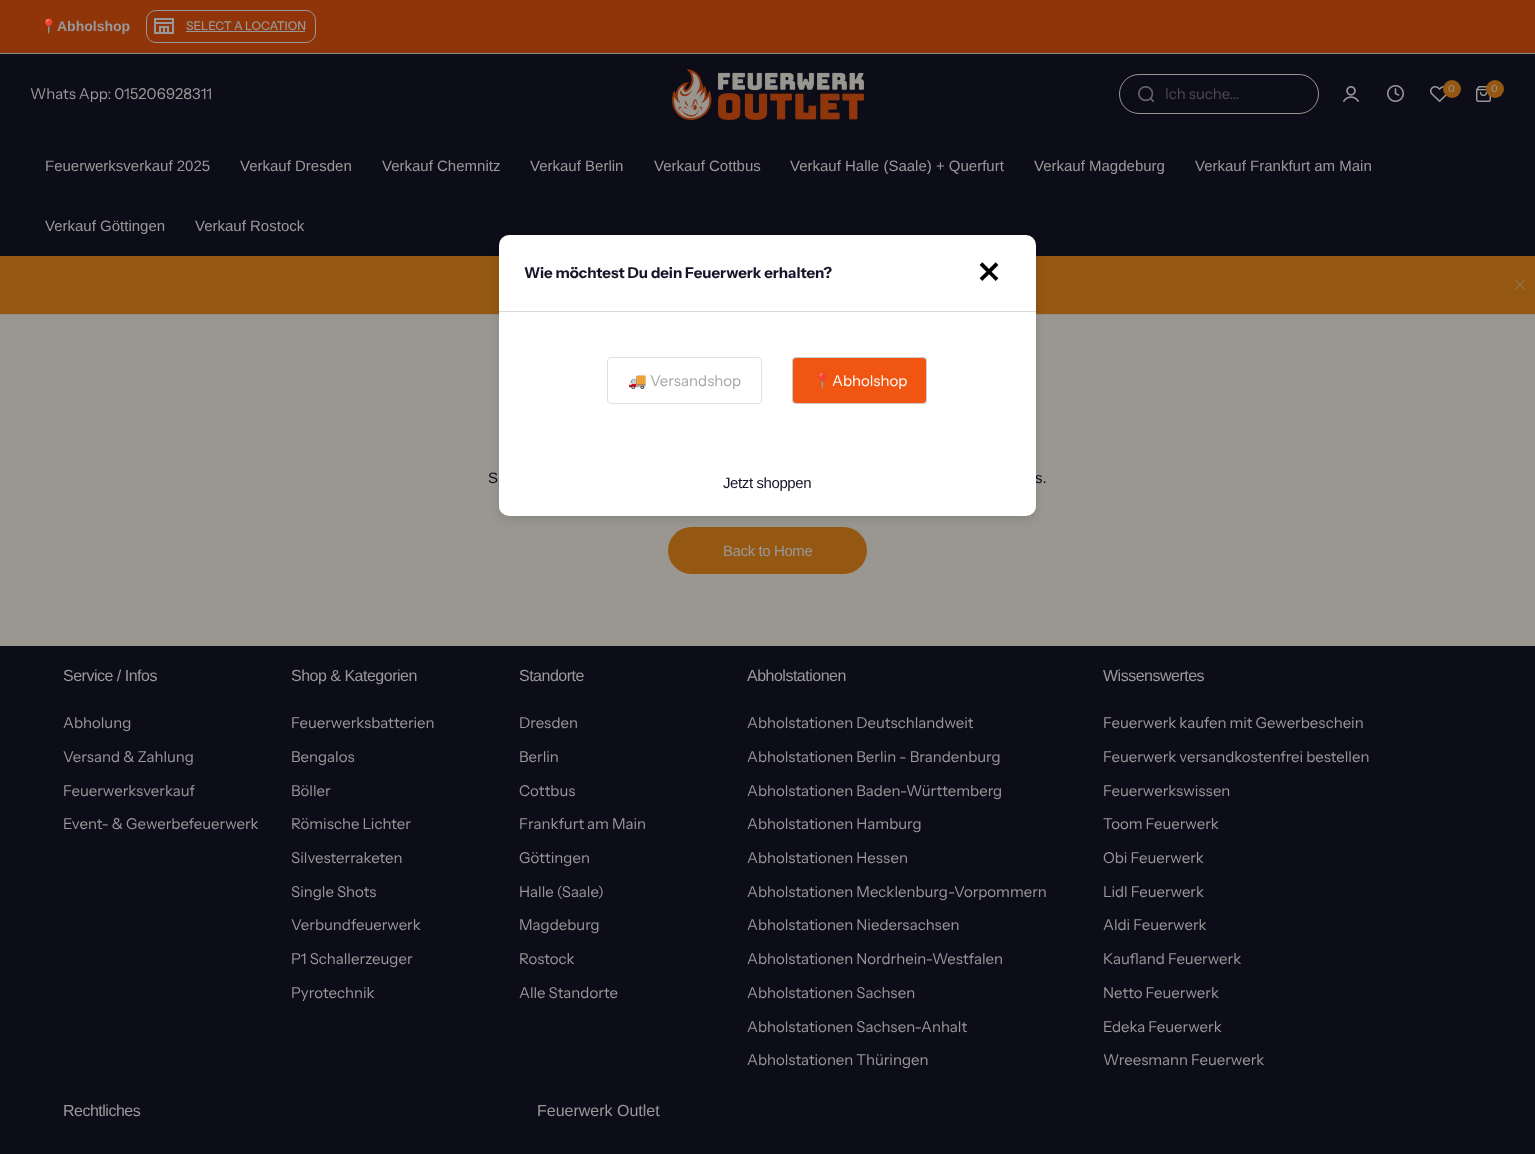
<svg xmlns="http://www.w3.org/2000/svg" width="1535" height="1154">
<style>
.a{font:bold 14px Noto Color Emoji;fill:#999}
.b{font:bold 14px Liberation Sans;fill:#999}
.c{font:500 12px Instrument Sans;fill:#999}
.d{font:15px Instrument Sans;fill:#999}
.e{font:15px Instrument Sans;fill:#4d4d4d}
.f{font:10px Instrument Sans;fill:#999}
.g{font:15px Liberation Sans;fill:#999}
.h{font:15px Liberation Sans;fill:#0d0c19}
.i{font:15px Instrument Sans;fill:#a6a6a6}
.j{font:15px Noto Color Emoji;fill:#a6a6a6}
.k{font:15px Liberation Sans;letter-spacing:-0.4px;fill:#161429}
.l{font:15px Instrument Sans;fill:#fff}
.m{font:15px Noto Color Emoji;fill:#fff}
.n{font:bold 30px DejaVu Sans;fill:#000}
.o{font:bold 15px Instrument Sans;fill:#161429}
.p{font:15px Liberation Sans;letter-spacing:-0.4px;fill:#999}
.q{font:16px Liberation Sans;letter-spacing:-0.5px;fill:#999}
.r{font:16px Liberation Sans;fill:#999}
</style>
<rect width="100%" height="100%" fill="#999790"/>
<path fill="#90340a" d="M0 0h1535v53H0z"/>
<path fill="#8d8d8d" d="M0 53h1535v1H0z"/>
<rect fill="none" stroke="#999" x="146.5" y="10.5" width="169" height="32" rx="9.5"/>
<image href="1.png" x="154" y="18" width="20" height="16"/>
<path fill="#999" d="M186 31h119v1H186z"/>
<path fill="#0d0c19" d="M0 54h1535v202H0z"/>
<image href="2.png" x="672" y="69" width="192" height="51"/>
<rect fill="none" stroke="#999790" x="1119.5" y="74.5" width="199" height="39" rx="19.5"/>
<image href="3.png" x="1138" y="86" width="16" height="16"/>
<image href="4.png" x="1343" y="86" width="16" height="16"/>
<image href="5.png" x="1387" y="85" width="17" height="17"/>
<image href="6.png" x="1430" y="86" width="17" height="16"/>
<circle fill="#945812" cx="1452" cy="89" r="9"/>
<image href="7.png" x="1476" y="86" width="15" height="16"/>
<circle fill="#945812" cx="1495" cy="89" r="9"/>
<path fill="#945812" d="M0 256h1535v58H0z"/>
<path fill="#8d8d8d" d="M0 314h1535v1H0z"/>
<image href="8.png" x="1515" y="279" width="10" height="11"/>
<rect fill="#945812" x="668" y="527" width="199" height="47" rx="23.5"/>
<rect fill="#0000001a" filter="blur(4px)" x="499" y="239" width="537" height="281" rx="10"/>
<path fill="#0d0c19" d="M0 646h1535v508H0z"/>
<text class="a" x="40" y="31">📍</text>
<text class="b" x="57" y="31">Abholshop</text>
<text class="c" x="186" y="30">SELECT A LOCATION</text>
<text class="d" x="30" y="99">Whats App: 015206928311</text>
<text class="e" x="1165" y="99">Ich suche…</text>
<text class="f" x="1448" y="92">0</text>
<text class="f" x="1491" y="92">0</text>
<text class="g" x="45" y="171">Feuerwerksverkauf 2025</text>
<text class="g" x="240" y="171">Verkauf Dresden</text>
<text class="g" x="382" y="171">Verkauf Chemnitz</text>
<text class="g" x="530" y="171">Verkauf Berlin</text>
<text class="g" x="654" y="171">Verkauf Cottbus</text>
<text class="g" x="790" y="171">Verkauf Halle (Saale) + Querfurt</text>
<text class="g" x="1034" y="171">Verkauf Magdeburg</text>
<text class="g" x="1195" y="171">Verkauf Frankfurt am Main</text>
<text class="g" x="45" y="231">Verkauf Göttingen</text>
<text class="g" x="195" y="231">Verkauf Rostock</text>
<text class="h" x="488" y="483">S</text>
<text class="h" x="1035" y="483">s.</text>
<rect fill="#fff" x="499" y="235" width="537" height="281" rx="10"/>
<rect fill="none" stroke="#e0e0e0" x="607.5" y="357.5" width="154" height="46" rx="3.5"/>
<text class="i" x="650" y="386">Versandshop</text>
<text class="j" x="628" y="386">🚚</text>
<text class="k" x="723" y="488">Jetzt shoppen</text>
<rect fill="#f05611" stroke="#ccc" x="792.5" y="357.5" width="134" height="46" rx="3.5"/>
<text class="l" x="832" y="386">Abholshop</text>
<text class="m" x="813" y="386">📍</text>
<text class="n" x="976" y="283">✕</text>
<text class="o" x="524" y="278">Wie möchtest Du dein Feuerwerk erhalten?</text>
<path fill="#d9d9d9" d="M499 311h537v1H499z"/>
<text class="p" x="723" y="556">Back to Home</text>
<text class="q" x="63" y="681">Service / Infos</text>
<text class="d" x="63" y="728">Abholung</text>
<text class="d" x="63" y="762">Versand &amp; Zahlung</text>
<text class="d" x="63" y="796">Feuerwerksverkauf</text>
<text class="d" x="63" y="829">Event- &amp; Gewerbefeuerwerk</text>
<text class="q" x="291" y="681">Shop &amp; Kategorien</text>
<text class="d" x="291" y="728">Feuerwerksbatterien</text>
<text class="d" x="291" y="762">Bengalos</text>
<text class="d" x="291" y="796">Böller</text>
<text class="d" x="291" y="829">Römische Lichter</text>
<text class="d" x="291" y="863">Silvesterraketen</text>
<text class="d" x="291" y="897">Single Shots</text>
<text class="d" x="291" y="930">Verbundfeuerwerk</text>
<text class="d" x="291" y="964">P1 Schallerzeuger</text>
<text class="d" x="291" y="998">Pyrotechnik</text>
<text class="q" x="519" y="681">Standorte</text>
<text class="d" x="519" y="728">Dresden</text>
<text class="d" x="519" y="762">Berlin</text>
<text class="d" x="519" y="796">Cottbus</text>
<text class="d" x="519" y="829">Frankfurt am Main</text>
<text class="d" x="519" y="863">Göttingen</text>
<text class="d" x="519" y="897">Halle (Saale)</text>
<text class="d" x="519" y="930">Magdeburg</text>
<text class="d" x="519" y="964">Rostock</text>
<text class="d" x="519" y="998">Alle Standorte</text>
<text class="q" x="747" y="681">Abholstationen</text>
<text class="d" x="747" y="728">Abholstationen Deutschlandweit</text>
<text class="d" x="747" y="762">Abholstationen Berlin - Brandenburg</text>
<text class="d" x="747" y="796">Abholstationen Baden-Württemberg</text>
<text class="d" x="747" y="829">Abholstationen Hamburg</text>
<text class="d" x="747" y="863">Abholstationen Hessen</text>
<text class="d" x="747" y="897">Abholstationen Mecklenburg-Vorpommern</text>
<text class="d" x="747" y="930">Abholstationen Niedersachsen</text>
<text class="d" x="747" y="964">Abholstationen Nordrhein-Westfalen</text>
<text class="d" x="747" y="998">Abholstationen Sachsen</text>
<text class="d" x="747" y="1032">Abholstationen Sachsen-Anhalt</text>
<text class="d" x="747" y="1065">Abholstationen Thüringen</text>
<text class="q" x="1103" y="681">Wissenswertes</text>
<text class="d" x="1103" y="728">Feuerwerk kaufen mit Gewerbeschein</text>
<text class="d" x="1103" y="762">Feuerwerk versandkostenfrei bestellen</text>
<text class="d" x="1103" y="796">Feuerwerkswissen</text>
<text class="d" x="1103" y="829">Toom Feuerwerk</text>
<text class="d" x="1103" y="863">Obi Feuerwerk</text>
<text class="d" x="1103" y="897">Lidl Feuerwerk</text>
<text class="d" x="1103" y="930">Aldi Feuerwerk</text>
<text class="d" x="1103" y="964">Kaufland Feuerwerk</text>
<text class="d" x="1103" y="998">Netto Feuerwerk</text>
<text class="d" x="1103" y="1032">Edeka Feuerwerk</text>
<text class="d" x="1103" y="1065">Wreesmann Feuerwerk</text>
<text class="q" x="63" y="1116">Rechtliches</text>
<text class="r" x="537" y="1116">Feuerwerk Outlet</text>
</svg>
